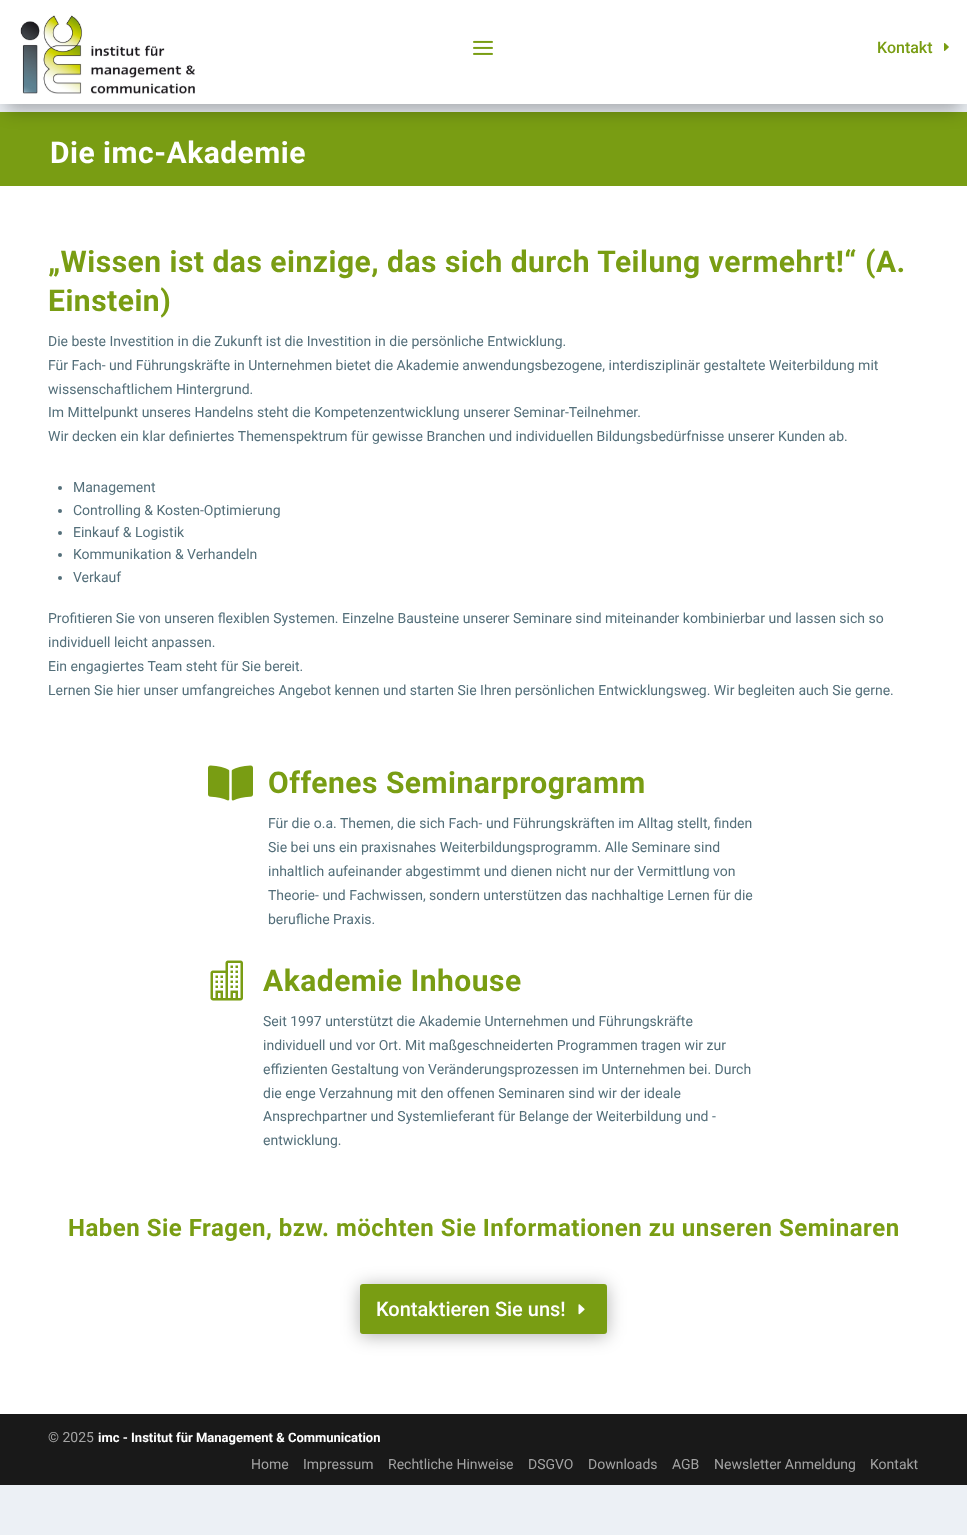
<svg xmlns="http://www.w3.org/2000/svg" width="967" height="1535">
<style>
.a{font:500 16px Roboto;fill:#799d13}
.b{font:bold 30px Roboto;letter-spacing:0.5px;fill:#fff}
.c{font:bold 30px Roboto;letter-spacing:0.5px;fill:#799d13}
.d{font:14px Roboto;fill:#546f7a}
.e{font:bold 24px Roboto;letter-spacing:0.5px;fill:#799d13}
.f{font:500 20px Roboto;fill:#fff}
.g{font:14px Roboto;fill:#a3a3a3}
.h{font:bold 13px Roboto;fill:#fff}
</style>
<rect width="100%" height="100%" fill="#ecf0f5"/>
<path fill="#fff" d="M0 186h967v1228H0z"/>
<path fill="#799d13" d="M0 112h967v74H0z"/>
<path fill="#0000004d" filter="blur(9px)" d="M6 18h955v92H6z"/>
<path fill="#fff" d="M0 0h967v104H0z"/>
<image href="1.png" x="20" y="15" width="175" height="79"/>
<image href="2.png" x="473" y="40" width="20" height="15"/>
<image href="3.png" x="944" y="43" width="5" height="8"/>
<circle fill="#546f7a" cx="60" cy="488" r="2"/>
<circle fill="#546f7a" cx="60" cy="511" r="2"/>
<circle fill="#546f7a" cx="60" cy="533" r="2"/>
<circle fill="#546f7a" cx="60" cy="555" r="2"/>
<circle fill="#546f7a" cx="60" cy="578" r="2"/>
<image href="4.png" x="208" y="765" width="45" height="36"/>
<image href="5.png" x="210" y="960" width="33" height="41"/>
<rect fill="#0000004d" filter="blur(9px)" x="360" y="1286" width="247" height="50" rx="3"/>
<rect fill="#799d13" stroke="#799d13" stroke-width="2" x="361" y="1285" width="245" height="48" rx="2"/>
<image href="6.png" x="578" y="1304" width="7" height="11"/>
<path fill="#191919" d="M0 1414h967v71H0z"/>
<text class="a" x="877" y="53">Kontakt</text>
<text class="b" x="50" y="163">Die imc-Akademie</text>
<text class="c" x="48" y="272">„Wissen ist das einzige, das sich durch Teilung vermehrt!“ (A.</text>
<text class="c" x="48" y="311">Einstein)</text>
<text class="d" x="48" y="346">Die beste Investition in die Zukunft ist die Investition in die persönliche Entwicklung.</text>
<text class="d" x="48" y="370">Für Fach- und Führungskräfte in Unternehmen bietet die Akademie anwendungsbezogene, interdisziplinär gestaltete Weiterbildung mit</text>
<text class="d" x="48" y="394">wissenschaftlichem Hintergrund.</text>
<text class="d" x="48" y="417">Im Mittelpunkt unseres Handelns steht die Kompetenzentwicklung unserer Seminar-Teilnehmer.</text>
<text class="d" x="48" y="441">Wir decken ein klar definiertes Themenspektrum für gewisse Branchen und individuellen Bildungsbedürfnisse unserer Kunden ab.</text>
<text class="d" x="73" y="492">Management</text>
<text class="d" x="73" y="515">Controlling &amp; Kosten-Optimierung</text>
<text class="d" x="73" y="537">Einkauf &amp; Logistik</text>
<text class="d" x="73" y="559">Kommunikation &amp; Verhandeln</text>
<text class="d" x="73" y="582">Verkauf</text>
<text class="d" x="48" y="623">Profitieren Sie von unseren flexiblen Systemen. Einzelne Bausteine unserer Seminare sind miteinander kombinierbar und lassen sich so</text>
<text class="d" x="48" y="647">individuell leicht anpassen.</text>
<text class="d" x="48" y="671">Ein engagiertes Team steht für Sie bereit.</text>
<text class="d" x="48" y="695">Lernen Sie hier unser umfangreiches Angebot kennen und starten Sie Ihren persönlichen Entwicklungsweg. Wir begleiten auch Sie gerne.</text>
<text class="c" x="268" y="793">Offenes Seminarprogramm</text>
<text class="d" x="268" y="828">Für die o.a. Themen, die sich Fach- und Führungskräften im Alltag stellt, finden</text>
<text class="d" x="268" y="852">Sie bei uns ein praxisnahes Weiterbildungsprogramm. Alle Seminare sind</text>
<text class="d" x="268" y="876">inhaltlich aufeinander abgestimmt und dienen nicht nur der Vermittlung von</text>
<text class="d" x="268" y="900">Theorie- und Fachwissen, sondern unterstützen das nachhaltige Lernen für die</text>
<text class="d" x="268" y="924">berufliche Praxis.</text>
<text class="c" x="263" y="991">Akademie Inhouse</text>
<text class="d" x="263" y="1026">Seit 1997 unterstützt die Akademie Unternehmen und Führungskräfte</text>
<text class="d" x="263" y="1050">individuell und vor Ort. Mit maßgeschneiderten Programmen tragen wir zur</text>
<text class="d" x="263" y="1074">effizienten Gestaltung von Veränderungsprozessen im Unternehmen bei. Durch</text>
<text class="d" x="263" y="1098">die enge Verzahnung mit den offenen Seminaren sind wir der ideale</text>
<text class="d" x="263" y="1121">Ansprechpartner und Systemlieferant für Belange der Weiterbildung und -</text>
<text class="d" x="263" y="1145">entwicklung.</text>
<text class="e" x="68" y="1236">Haben Sie Fragen, bzw. möchten Sie Informationen zu unseren Seminaren</text>
<text class="f" x="376" y="1316">Kontaktieren Sie uns!</text>
<text class="g" x="48" y="1442">© 2025</text>
<text class="h" x="98" y="1442">imc - Institut für Management &amp; Communication</text>
<text class="g" x="251" y="1469">Home</text>
<text class="g" x="303" y="1469">Impressum</text>
<text class="g" x="388" y="1469">Rechtliche Hinweise</text>
<text class="g" x="528" y="1469">DSGVO</text>
<text class="g" x="588" y="1469">Downloads</text>
<text class="g" x="672" y="1469">AGB</text>
<text class="g" x="714" y="1469">Newsletter Anmeldung</text>
<text class="g" x="870" y="1469">Kontakt</text>
</svg>
